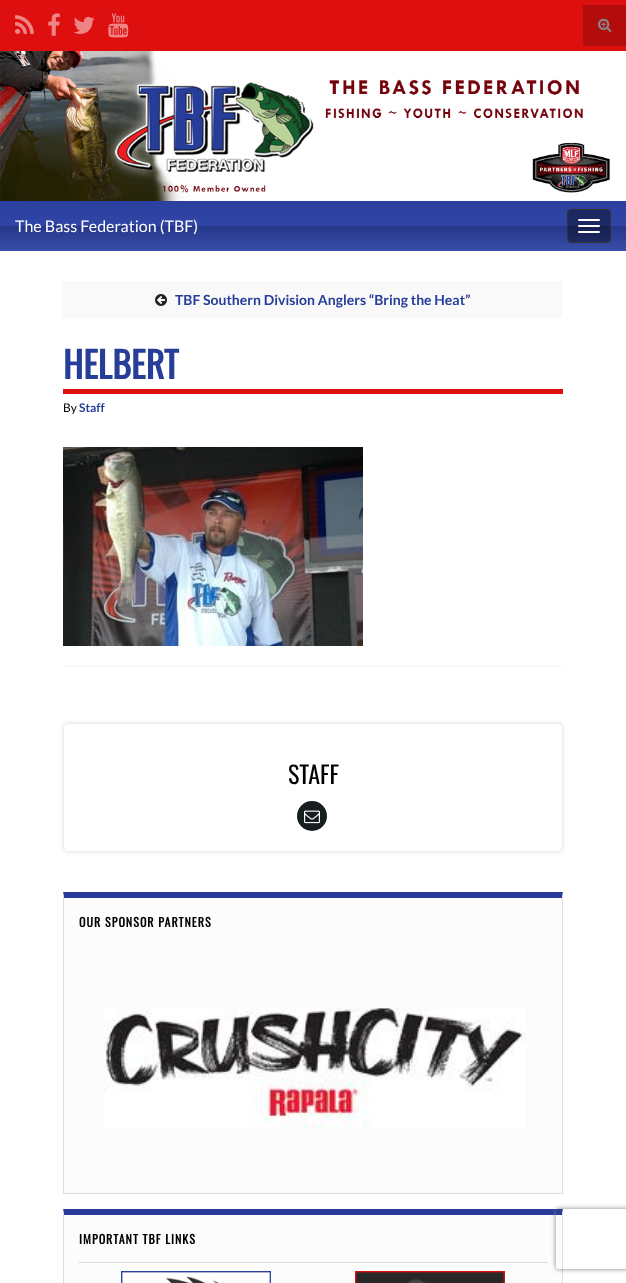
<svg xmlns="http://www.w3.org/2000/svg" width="626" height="1283">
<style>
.a{font:16px Lato;fill:#fff}
.b{font:bold 14px Lato;fill:#263d9a}
.c{font:bold 36px Oswald;fill:#263d9a}
.d{font:12px Lato;fill:#000}
.e{font:bold 12px Lato;fill:#263d9a}
.f{font:24px Oswald;fill:#000}
.g{font:bold 12px Oswald;letter-spacing:1px;fill:#000}
</style>
<defs>
<linearGradient id="g1" gradientUnits="userSpaceOnUse" x1="313" y1="201" x2="313" y2="251"><stop offset="0" stop-color="#2a3f9e"/><stop offset="0.5" stop-color="#3045a5"/><stop offset="0.51" stop-color="#253789"/><stop offset="1" stop-color="#394eab"/></linearGradient>
<clipPath id="clip1"><path d="M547 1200h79v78h-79zm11 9h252c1 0 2 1 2 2v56c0 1-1 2-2 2h-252c-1 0-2-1-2-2v-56c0-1 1-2 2-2z" clip-rule="evenodd"/></clipPath>
</defs>
<rect width="100%" height="100%" fill="#fff"/>
<path fill="#de0f0f" d="M0 0h626v51H0z"/>
<image href="1.png" x="15" y="15" width="19" height="19"/>
<image href="2.png" x="48" y="13" width="12" height="23"/>
<image href="3.png" x="74" y="16" width="21" height="18"/>
<image href="4.png" x="108" y="13" width="21" height="25"/>
<path fill="#b20c0c" d="M583 5h43v41H583z"/>
<image href="5.png" x="598" y="18" width="14" height="14"/>
<image href="6.png" x="0" y="51" width="610" height="150"/>
<path fill="url(#g1)" d="M0 201h626v50H0z"/>
<rect fill="#00000066" stroke="#333" x="567.5" y="209.5" width="43" height="33" rx="3.5"/>
<rect fill="#fff" x="578" y="219" width="22" height="2" rx="1"/>
<rect fill="#fff" x="578" y="225" width="22" height="2" rx="1"/>
<rect fill="#fff" x="578" y="231" width="22" height="2" rx="1"/>
<path fill="#f9f9f9" d="M63 281h500v37H63z"/>
<image href="7.png" x="155" y="294" width="12" height="12"/>
<path fill="#de0f0f" d="M63 389h500v5H63z"/>
<image href="8.png" x="63" y="447" width="300" height="199"/>
<path fill="#f5f5f5" d="M63 666h500v1H63z"/>
<rect fill="#0000001a" filter="blur(2.5px)" x="63" y="723" width="500" height="129" rx="5"/>
<rect fill="#fff" stroke="#ebedf0" x="63.5" y="723.5" width="499" height="128" rx="4.5"/>
<circle fill="#181e1f" cx="312" cy="816" r="15"/>
<image href="9.png" x="304" y="810" width="16" height="14"/>
<path fill="#fcfcfc" d="M64 898h498v295H64z"/>
<path fill="#283b99" d="M63 892h500l-1 6h-498z"/>
<path fill="#ddd" d="M563 892v302l-1-1v-295z"/>
<path fill="#ddd" d="M63 1193h500v1H63z"/>
<path fill="#ddd" d="M63 1194v-302l1 6v295z"/>
<image href="10.png" x="103" y="1007" width="423" height="121"/>
<path fill="#fcfcfc" d="M64 1215h498v68H64z"/>
<path fill="#283b99" d="M63 1209h500l-1 6h-498z"/>
<path fill="#ddd" d="M563 1209v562l-1-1v-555z"/>
<path fill="#ddd" d="M63 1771v-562l1 6v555z"/>
<path fill="#ddd" d="M78 1262h470v1H78z"/>
<image href="11.png" x="121" y="1271" width="150" height="12"/>
<image href="12.png" x="355" y="1271" width="150" height="12"/>
<g clip-path="url(#clip1)">
<rect fill="#808080" filter="blur(2.5px)" x="556" y="1209" width="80" height="60" rx="2"/>
</g>
<text class="a" x="15" y="232">The Bass Federation (TBF)</text>
<text class="b" x="175" y="305">TBF Southern Division Anglers “Bring the Heat”</text>
<text class="c" x="63" y="379">HELBERT</text>
<text class="d" x="63" y="412">By</text>
<text class="e" x="79" y="412">Staff</text>
<text class="f" x="288" y="784">STAFF</text>
<text class="g" x="79" y="927">OUR SPONSOR PARTNERS</text>
<text class="g" x="79" y="1244">IMPORTANT TBF LINKS</text>
</svg>
